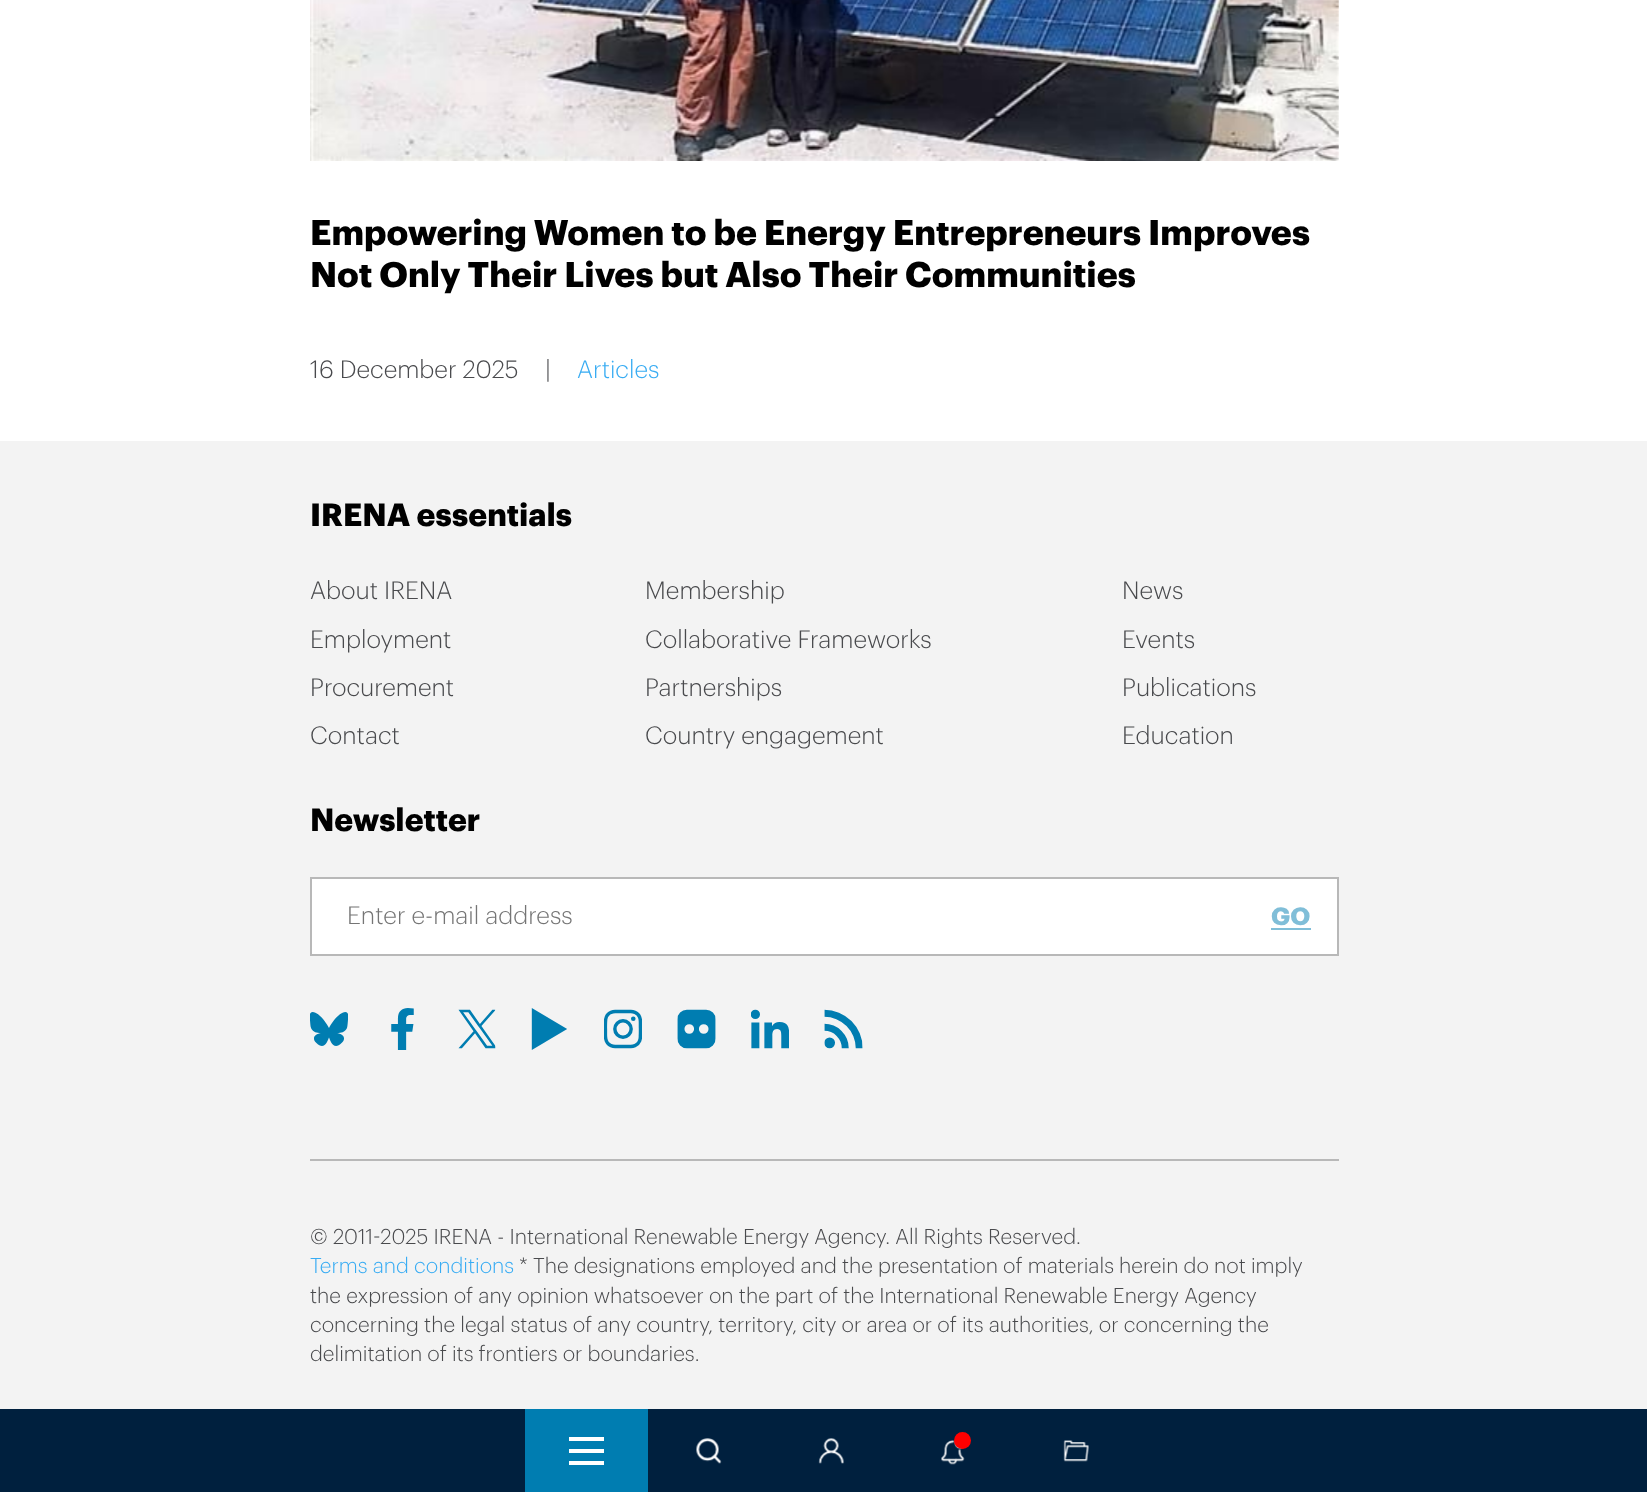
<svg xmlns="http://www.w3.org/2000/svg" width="1647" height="1492">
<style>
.a{font:bold 35px Graphik;fill:#000}
.b{font:300 24.5px Graphik;fill:#494a4d}
.c{font:300 24.5px Graphik;fill:#38acf3}
.d{font:bold 31.5px Graphik;fill:#000}
.e{font:300 24.5px Graphik;fill:#757575}
.f{font:bold 24.5px Graphik;fill:#80bed8}
.g{font:300 21px Graphik;fill:#494a4d}
.h{font:300 21px Graphik;fill:#38acf3}
</style>
<rect width="100%" height="100%" fill="#fff"/>
<image href="1.png" x="310" y="0" width="1029" height="161"/>
<path fill="#00203e" d="M0 1409h1647v83H0z"/>
<path fill="#007db1" d="M525 1409h123v83H525z"/>
<path fill="#fff" d="M569 1449h35v4H569z"/>
<path fill="#fff" d="M569 1437h35v4H569z"/>
<path fill="#fff" d="M569 1461h35v4H569z"/>
<image href="2.png" x="696" y="1438" width="26" height="26"/>
<image href="3.png" x="818" y="1438" width="26" height="26"/>
<image href="4.png" x="941" y="1440" width="24" height="25"/>
<circle fill="#f00" cx="962.5" cy="1440.5" r="8.5"/>
<image href="5.png" x="1063" y="1440" width="26" height="22"/>
<path fill="#f3f3f3" d="M0 441h1647v968H0z"/>
<path fill="#fff" stroke="#b8b8b8" stroke-width="2" d="M311 878h1027v77H311z"/>
<path fill="#80bed8" d="M1271 928h40v2H1271z"/>
<image href="6.png" x="310" y="1012" width="38" height="34"/>
<image href="7.png" x="391" y="1008" width="23" height="42"/>
<image href="8.png" x="458" y="1009" width="38" height="40"/>
<image href="9.png" x="531" y="1008" width="36" height="42"/>
<image href="10.png" x="604" y="1009" width="38" height="40"/>
<image href="11.png" x="677" y="1009" width="39" height="40"/>
<image href="12.png" x="751" y="1009" width="38" height="40"/>
<image href="13.png" x="824" y="1009" width="39" height="40"/>
<path fill="#b8b8b8" d="M310 1159h1029v2H310z"/>
<text class="a" x="310" y="245">Empowering Women to be Energy Entrepreneurs Improves</text>
<text class="a" x="310" y="287">Not Only Their Lives but Also Their Communities</text>
<text class="b" x="310" y="378">16 December 2025</text>
<text class="b" x="545" y="378">|</text>
<text class="c" x="577" y="378">Articles</text>
<text class="d" x="310" y="526">IRENA essentials</text>
<text class="b" x="310" y="599">About IRENA</text>
<text class="b" x="645" y="599">Membership</text>
<text class="b" x="1122" y="599">News</text>
<text class="b" x="310" y="648">Employment</text>
<text class="b" x="645" y="648">Collaborative Frameworks</text>
<text class="b" x="1122" y="648">Events</text>
<text class="b" x="310" y="696">Procurement</text>
<text class="b" x="645" y="696">Partnerships</text>
<text class="b" x="1122" y="696">Publications</text>
<text class="b" x="310" y="744">Contact</text>
<text class="b" x="645" y="744">Country engagement</text>
<text class="b" x="1122" y="744">Education</text>
<text class="d" x="310" y="831">Newsletter</text>
<text class="e" x="347" y="924">Enter e-mail address</text>
<text class="f" x="1271" y="925">GO</text>
<text class="g" x="310" y="1244">© 2011-2025 IRENA - International Renewable Energy Agency. All Rights Reserved.</text>
<text class="h" x="310" y="1273">Terms and conditions</text>
<text class="g" x="519" y="1273">* The designations employed and the presentation of materials herein do not imply</text>
<text class="g" x="310" y="1303">the expression of any opinion whatsoever on the part of the International Renewable Energy Agency</text>
<text class="g" x="310" y="1332">concerning the legal status of any country, territory, city or area or of its authorities, or concerning the</text>
<text class="g" x="310" y="1361">delimitation of its frontiers or boundaries.</text>
</svg>
